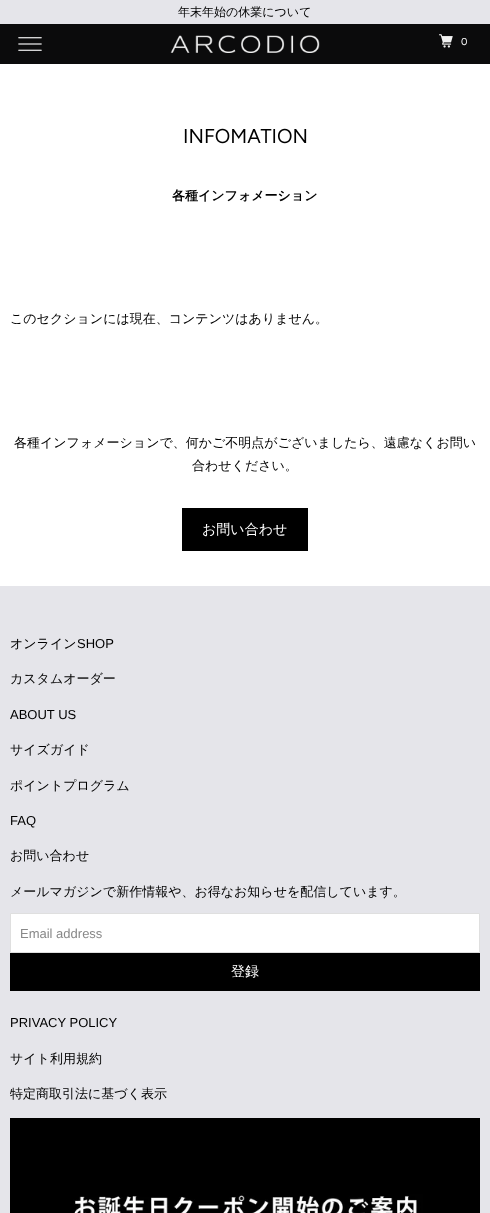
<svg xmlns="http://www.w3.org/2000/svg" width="490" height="1213">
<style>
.a{font:500 12px WenQuanYi Zen Hei;fill:#000}
.b{font:20px Figtree;fill:#000}
.c{font:bold 13px WenQuanYi Zen Hei;fill:#000}
.d{font:500 13px WenQuanYi Zen Hei;fill:#000}
.e{font:500 14px WenQuanYi Zen Hei;fill:#fff}
.f{font:13px Liberation Sans;fill:#000}
.g{font:13px Liberation Sans;fill:#888}
.h{font:10px Figtree;letter-spacing:1px;fill:#fff}
</style>
<rect width="100%" height="100%" fill="#e5e5ea"/>
<path fill="#fff" d="M0 64h490v522H0z"/>
<path fill="#000" d="M182 508h126v43H182z"/>
<path fill="#fff" stroke="#dfdfdf" d="M10.5 913.5h469v39H10.5z"/>
<path fill="#000" d="M10 953h470v38H10z"/>
<image href="1.png" x="10" y="1118" width="470" height="95"/>
<path fill="#0b0b0c" d="M0 24h490v40H0z"/>
<image href="2.png" x="18" y="37" width="24" height="14"/>
<image href="3.png" x="170" y="35" width="150" height="18"/>
<image href="4.png" x="439" y="34" width="14" height="14"/>
<text class="a" x="178" y="16">年末年始の休業について</text>
<text class="b" x="183" y="143">INFOMATION</text>
<text class="c" x="172" y="200">各種インフォメーション</text>
<text class="d" x="10" y="323">このセクションには現在、コンテンツはありません。</text>
<text class="d" x="14" y="447">各種インフォメーションで、何かご不明点がございましたら、遠慮なくお問い</text>
<text class="d" x="192" y="470">合わせください。</text>
<text class="e" x="202" y="534">お問い合わせ</text>
<text class="d" x="10" y="648">オンライン</text>
<text class="f" x="77" y="648">SHOP</text>
<text class="d" x="10" y="683">カスタムオーダー</text>
<text class="f" x="10" y="719">ABOUT US</text>
<text class="d" x="10" y="754">サイズガイド</text>
<text class="d" x="10" y="790">ポイントプログラム</text>
<text class="f" x="10" y="825">FAQ</text>
<text class="d" x="10" y="860">お問い合わせ</text>
<text class="d" x="10" y="896">メールマガジンで新作情報や、お得なお知らせを配信しています。</text>
<text class="g" x="20" y="938">Email address</text>
<text class="e" x="231" y="976">登録</text>
<text class="f" x="10" y="1027">PRIVACY POLICY</text>
<text class="d" x="10" y="1063">サイト利用規約</text>
<text class="d" x="10" y="1098">特定商取引法に基づく表示</text>
<text class="h" x="461" y="45">0</text>
</svg>
